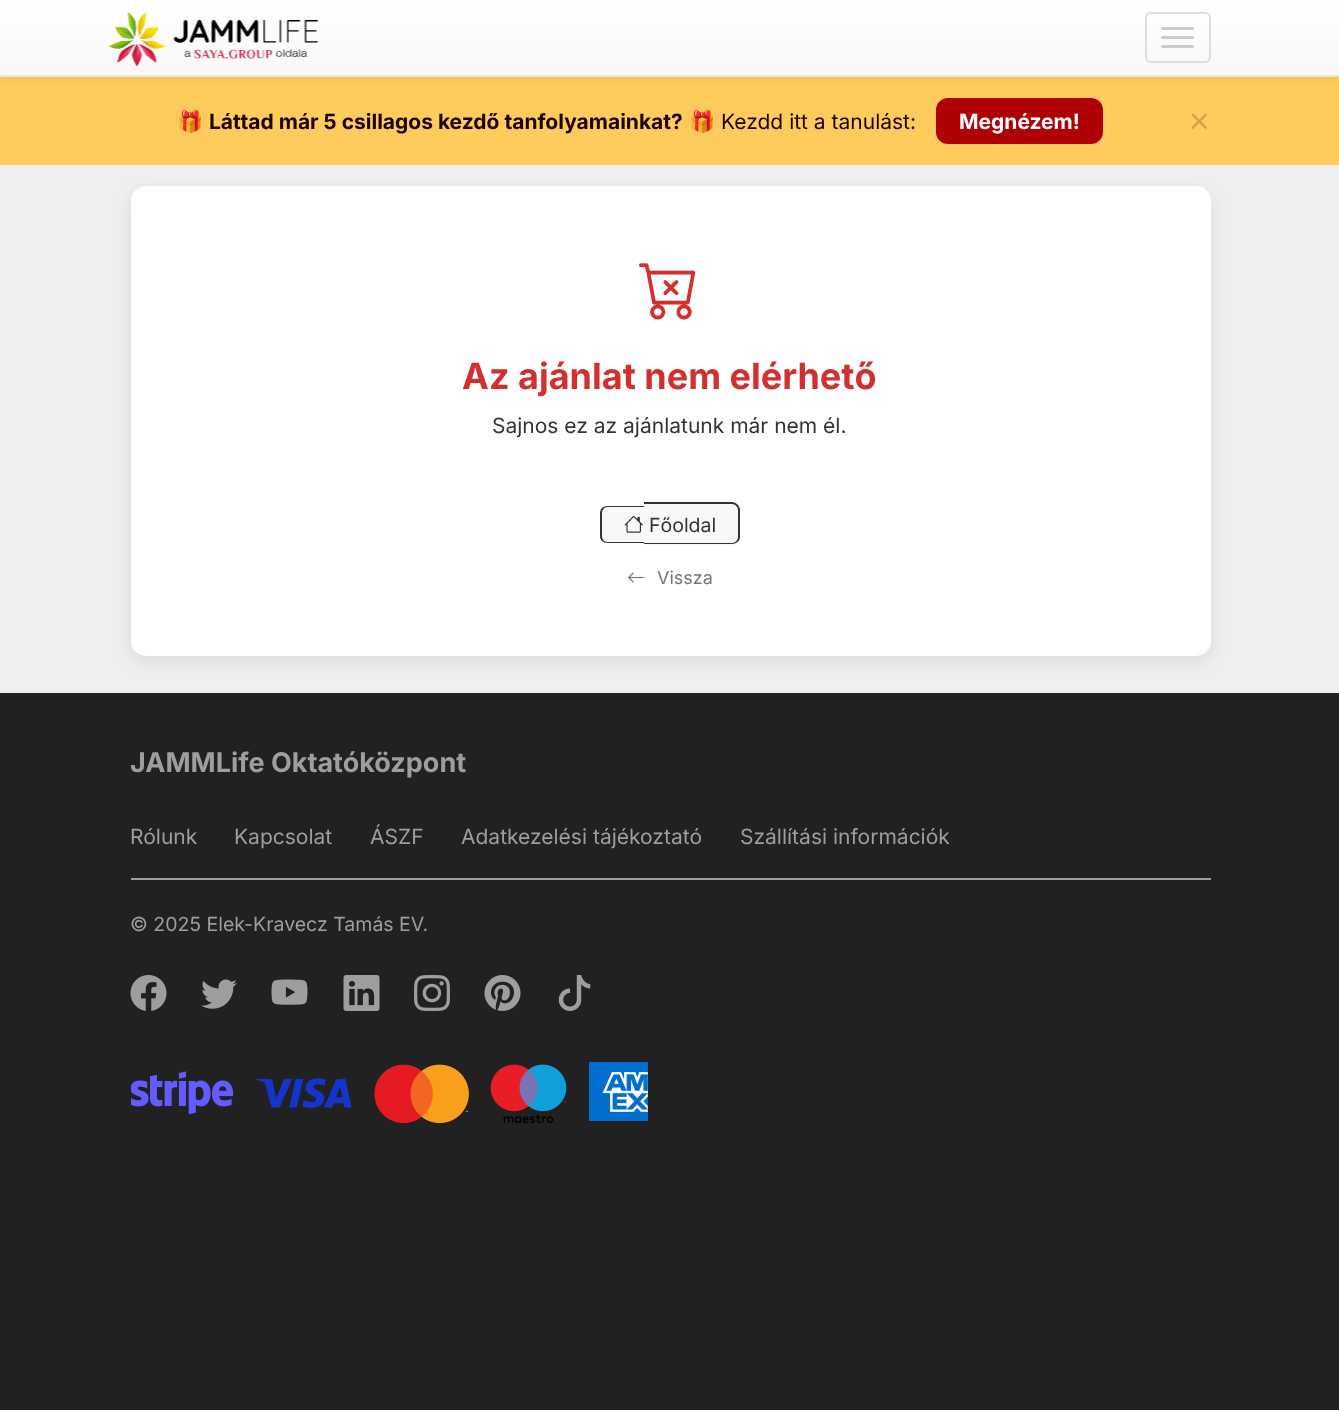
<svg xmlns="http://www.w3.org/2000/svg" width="1339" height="1410">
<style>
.a{font:21px Noto Color Emoji;fill:#1b0001}
.b{font:bold 21px Inter;fill:#1b0001}
.c{font:21px Inter;fill:#1b0001}
.d{font:bold 21px Inter;fill:#fff}
.e{font:36px Open Sans;fill:#d1a24a}
.f{font:bold 36px Inter;fill:#d32f2f}
.g{font:21px Inter;fill:#333}
.h{font:19.5px Inter;fill:#333}
.i{font:18px Inter;fill:#757575}
.j{font:bold 27px Inter;fill:#9e9e9e}
.k{font:21px Inter;fill:#9e9e9e}
.l{font:19.5px Inter;fill:#9e9e9e}
</style>
<defs>
<linearGradient id="g1" gradientUnits="userSpaceOnUse" x1="670" y1="0" x2="670" y2="75"><stop offset="0" stop-color="#fff"/><stop offset="1" stop-color="#f8f8f8"/></linearGradient>
</defs>
<rect width="100%" height="100%" fill="#efefef"/>
<rect fill="#00000014" filter="blur(9px)" x="131" y="192" width="1080" height="470" rx="15"/>
<path fill="#ffcb5c" d="M0 77h1339v88H0z"/>
<path fill="#00000012" filter="blur(4px)" d="M0 2h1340v76H0z"/>
<path fill="url(#g1)" d="M0 0h1339v75H0z"/>
<path fill="#e7e7e7" d="M0 75h1339v2H0z"/>
<image href="1.png" x="108" y="12" width="211" height="54"/>
<rect fill="none" stroke="#ddd" stroke-width="2" x="1146" y="13" width="64" height="49" rx="5"/>
<rect fill="#ccc" x="1161" y="27" width="33" height="3" rx="1.5"/>
<rect fill="#ccc" x="1161" y="36" width="33" height="3" rx="1.5"/>
<rect fill="#ccc" x="1161" y="45" width="33" height="3" rx="1.5"/>
<rect fill="#b00006" x="936" y="98" width="167" height="46" rx="12"/>
<rect fill="#fff" x="131" y="186" width="1080" height="470" rx="15"/>
<image href="2.png" x="639" y="263" width="57" height="57"/>
<path fill="#f8f8f8" d="M608 506h36v37h-36c-4.5 0-8-3.5-8-8v-21c0-4.5 3.5-8 8-8z"/>
<path fill="#333" fill-rule="evenodd" d="M608 506h36v37h-36c-5 0-8-3-8-7v-23c0-4 3-7 8-7zm0 1h36v35h-36c-4 0-6-3-6-6v-23c0-3 2-6 6-6z"/>
<path fill="#f8f8f8" d="M644 503h88c4.5 0 8 3.5 8 8v26c0 4.5-3.5 8-8 8h-88z"/>
<path fill="#333" fill-rule="evenodd" d="M644 502h88c4 0 8 4 8 8v27c0 4-4 7-8 7h-88zm0 2h88c3 0 6 3 6 6v27c0 3-3 6-6 6h-88z"/>
<image href="3.png" x="624" y="516" width="19" height="17"/>
<image href="4.png" x="628" y="572" width="16" height="11"/>
<path fill="#212121" d="M-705 693v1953h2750v-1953h-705v543h-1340v-543z"/>
<path fill="#212121" d="M0 693h1339v543H0z"/>
<path fill="#9e9e9e" d="M131 878h1080v2H131z"/>
<image href="5.png" x="130" y="975" width="37" height="36"/>
<image href="6.png" x="201" y="979" width="36" height="30"/>
<image href="7.png" x="271" y="979" width="37" height="26"/>
<image href="8.png" x="343" y="975" width="37" height="36"/>
<image href="9.png" x="414" y="975" width="36" height="36"/>
<image href="10.png" x="484" y="975" width="37" height="36"/>
<image href="11.png" x="558" y="975" width="33" height="36"/>
<image href="12.png" x="131" y="1062" width="517" height="62"/>
<text class="a" x="177" y="129">🎁</text>
<text class="b" x="209" y="129">Láttad már 5 csillagos kezdő tanfolyamainkat?</text>
<text class="a" x="689" y="129">🎁</text>
<text class="c" x="721" y="129">Kezdd itt a tanulást:</text>
<text class="d" x="959" y="129">Megnézem!</text>
<text class="e" x="1189" y="134">×</text>
<text class="f" x="462" y="389">Az ajánlat nem elérhető</text>
<text class="g" x="492" y="433">Sajnos ez az ajánlatunk már nem él.</text>
<text class="h" x="649" y="532">Főoldal</text>
<text class="i" x="657" y="584">Vissza</text>
<text class="j" x="130" y="772">JAMMLife Oktatóközpont</text>
<text class="k" x="130" y="844">Rólunk</text>
<text class="k" x="234" y="844">Kapcsolat</text>
<text class="k" x="370" y="844">ÁSZF</text>
<text class="k" x="461" y="844">Adatkezelési tájékoztató</text>
<text class="k" x="740" y="844">Szállítási információk</text>
<text class="l" x="130" y="931">© 2025 Elek-Kravecz Tamás EV.</text>
</svg>
